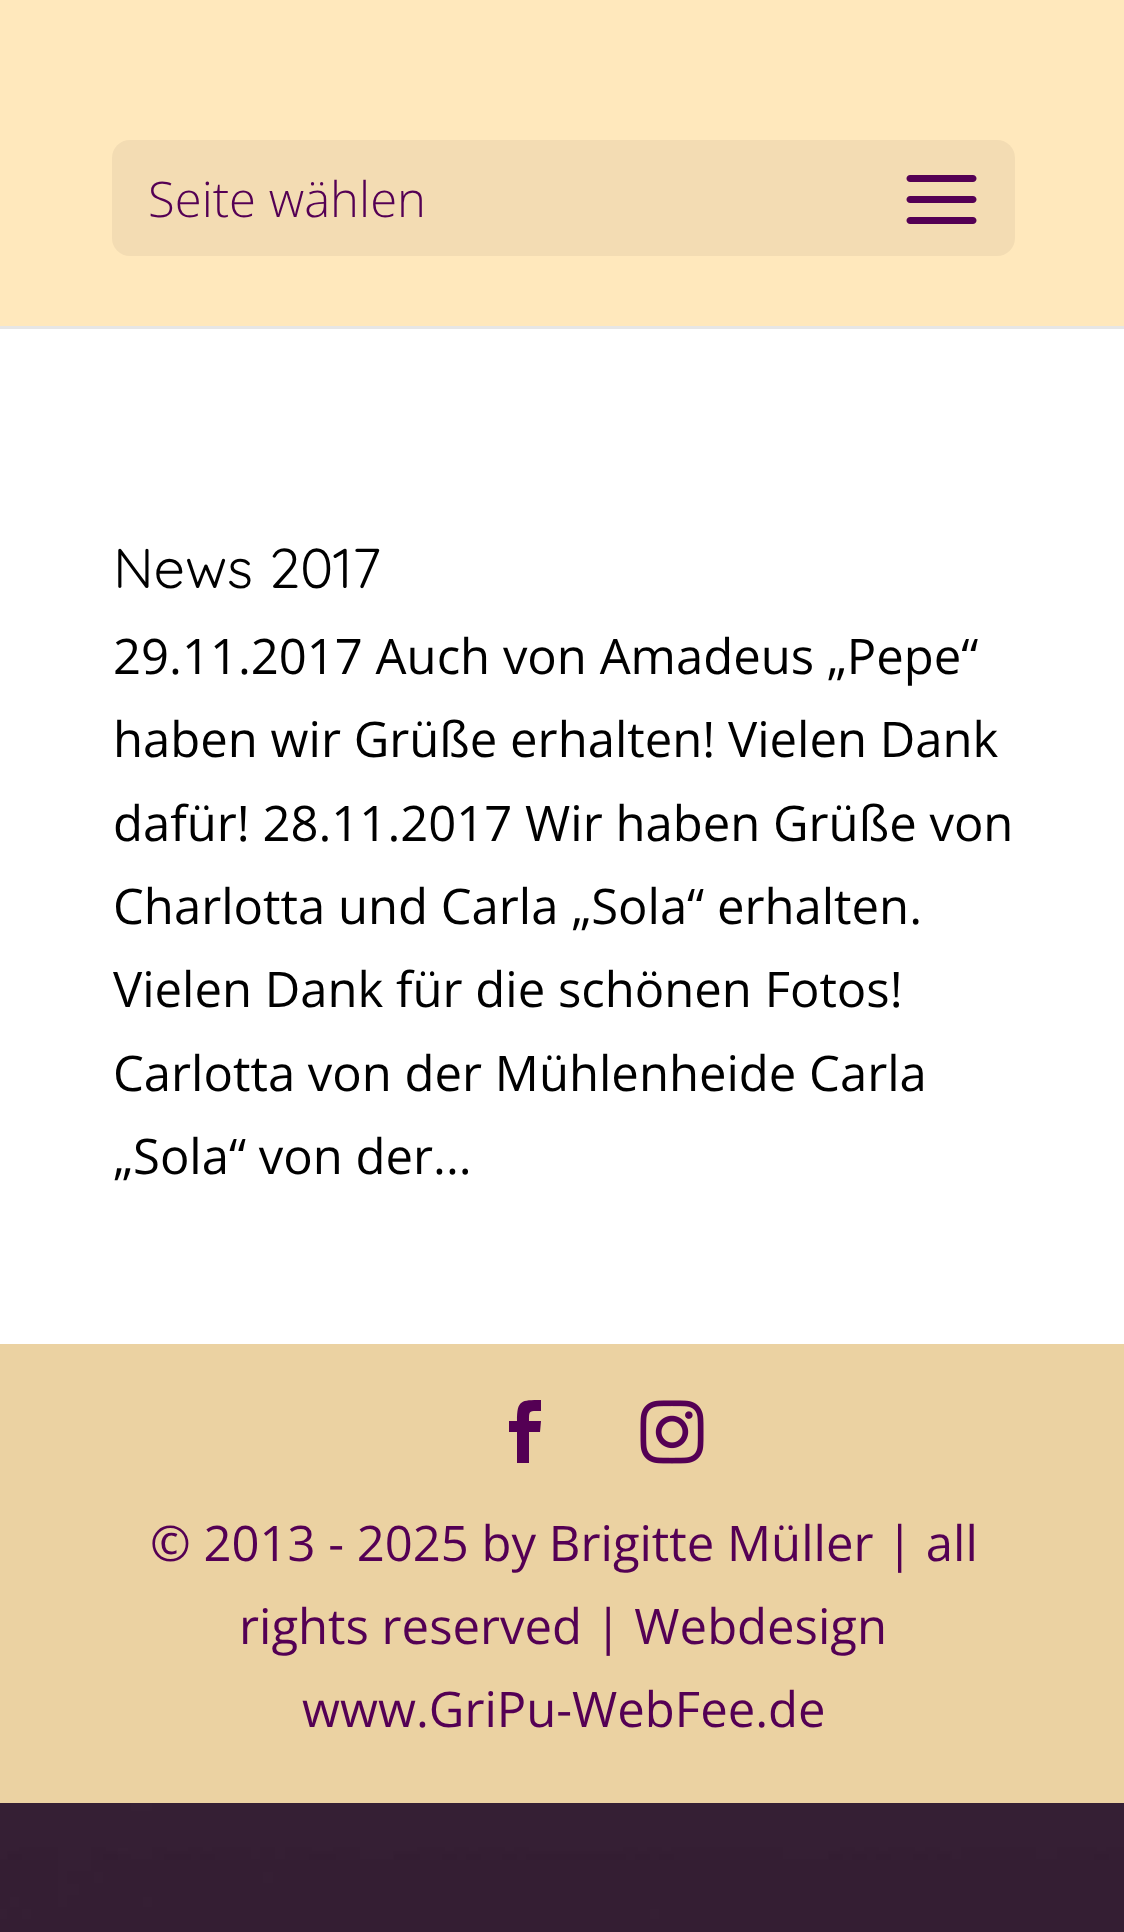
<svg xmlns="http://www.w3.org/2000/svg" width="1124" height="1932">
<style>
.a{font:300 49px Open Sans;fill:#540054}
.b{font:56px Quicksand;fill:#000}
.c{font:49px Open Sans;fill:#000}
.d{font:49px Open Sans;fill:#540054}
</style>
<rect width="100%" height="100%" fill="#fff"/>
<image href="1.png" x="0" y="1803" width="1124" height="129"/>
<path fill="#e6e6e6" d="M0 326h1124v3H0z"/>
<path fill="#ffe8bc" d="M0 0h1124v326H0z"/>
<rect fill="#f3dcb3" x="112" y="140" width="903" height="116" rx="18"/>
<image href="2.png" x="906" y="175" width="71" height="49"/>
<path fill="#ebd2a2" d="M0 1344h1124v459H0z"/>
<path fill="#540054" d="M517 1463h12v-31h11l1-11h-12c0-11 0-10 12-10v-11c-20 0-24 0-24 21h-8v11h8z"/>
<image href="3.png" x="640" y="1400" width="64" height="64"/>
<text class="a" x="148" y="217">Seite wählen</text>
<text class="b" x="113" y="588">News 2017</text>
<text class="c" x="113" y="674">29.11.2017 Auch von Amadeus „Pepe“</text>
<text class="c" x="113" y="757">haben wir Grüße erhalten! Vielen Dank</text>
<text class="c" x="113" y="841">dafür! 28.11.2017 Wir haben Grüße von</text>
<text class="c" x="113" y="924">Charlotta und Carla „Sola“ erhalten.</text>
<text class="c" x="113" y="1007">Vielen Dank für die schönen Fotos!</text>
<text class="c" x="113" y="1091">Carlotta von der Mühlenheide Carla</text>
<text class="c" x="113" y="1174">„Sola“ von der...</text>
<text class="d" x="150" y="1561">© 2013 - 2025 by Brigitte Müller | all</text>
<text class="d" x="239" y="1644">rights reserved | Webdesign</text>
<text class="d" x="302" y="1727">www.GriPu-WebFee.de</text>
</svg>
